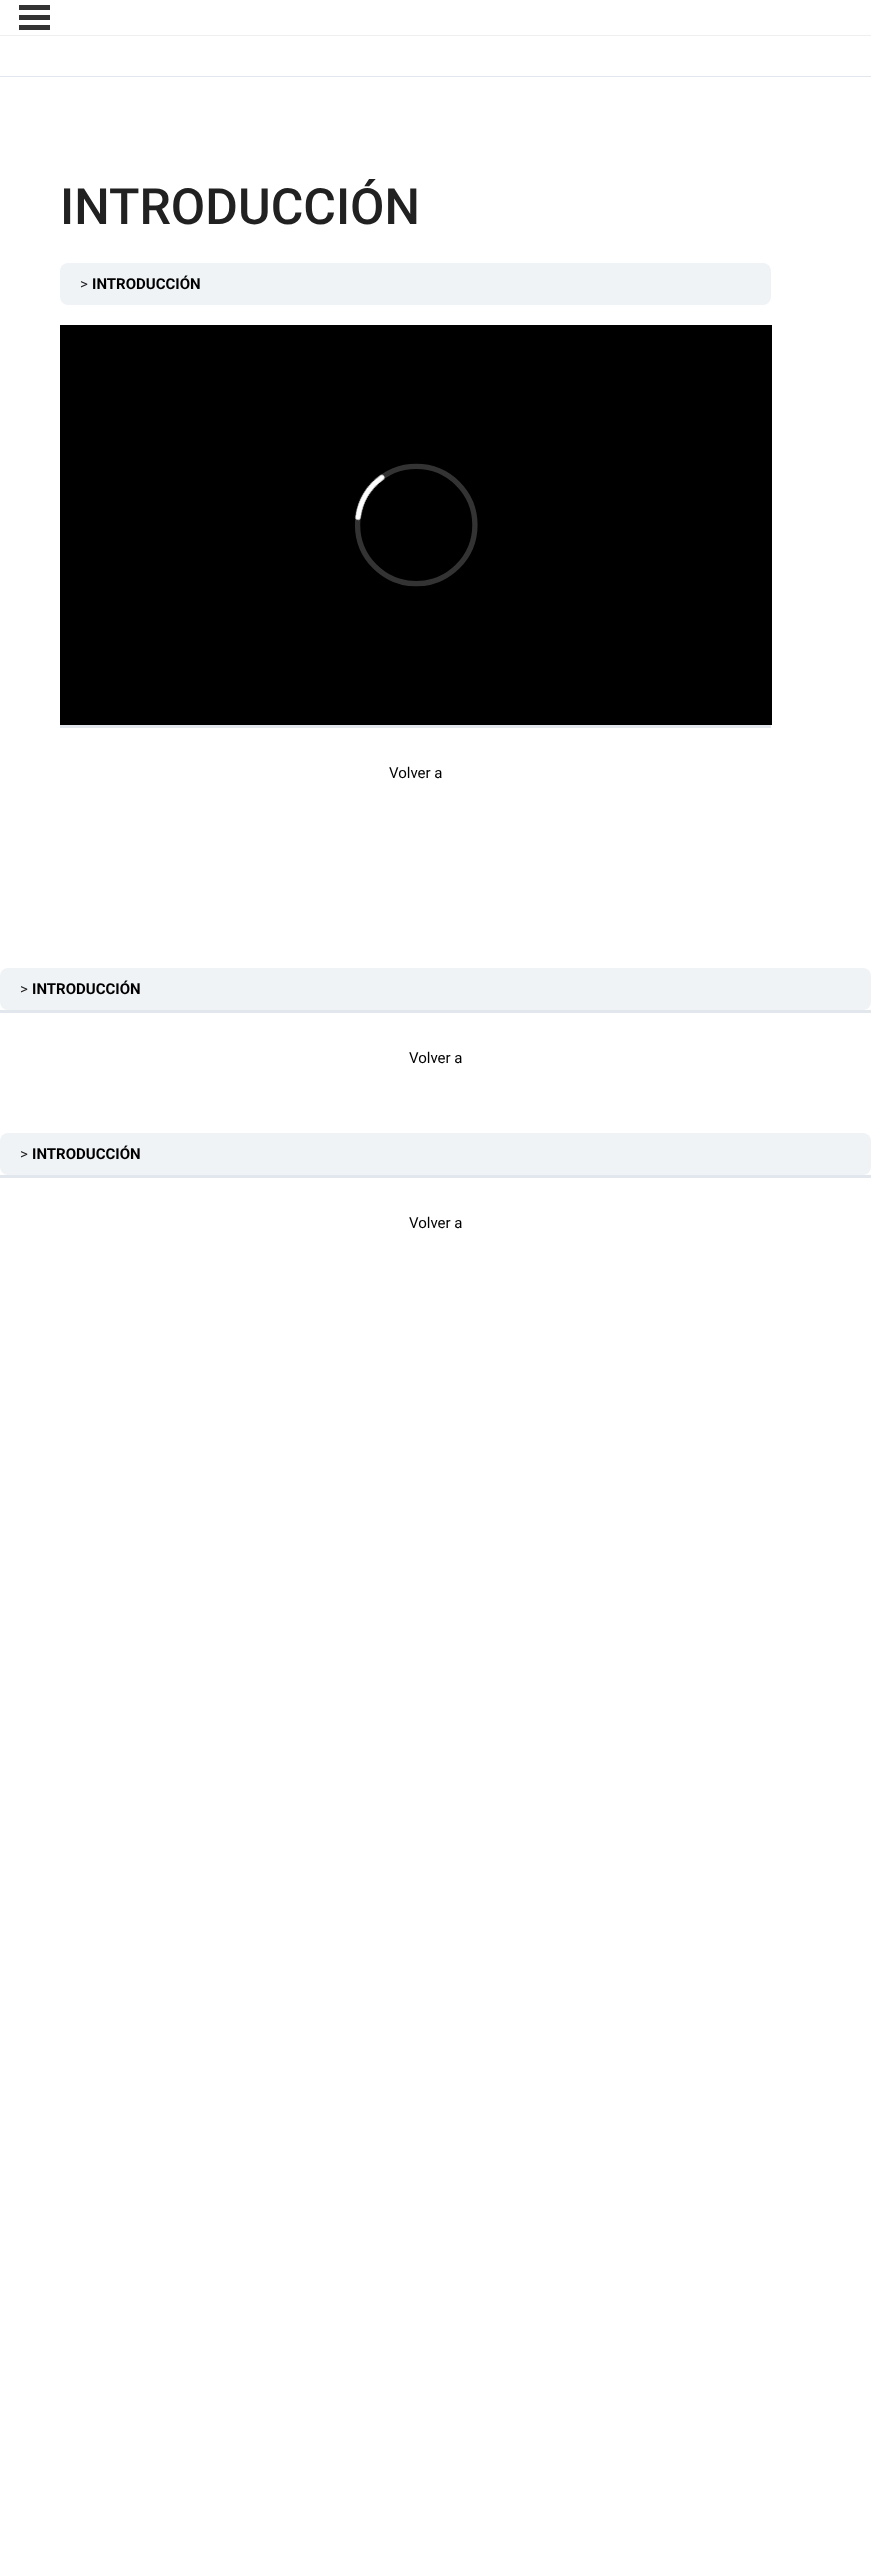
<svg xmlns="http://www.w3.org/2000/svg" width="871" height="2549">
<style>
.a{font:500 50px Roboto;fill:#212121}
.b{font:15px Roboto;fill:#212121}
.c{font:bold 15px Roboto;fill:#000}
.d{font:15px Roboto;fill:#000}
</style>
<rect width="100%" height="100%" fill="#fff"/>
<path fill="#e2e7ed" d="M0 76h871v1H0z"/>
<path fill="#333" d="M19 5h31v5H19z"/>
<path fill="#333" d="M19 15h31v5H19z"/>
<path fill="#333" d="M19 25h31v5H19z"/>
<path fill="#efefef" d="M0 35h871v1H0z"/>
<rect fill="#f0f3f6" x="60" y="263" width="711" height="42" rx="8"/>
<path fill="#000" d="M60 325h294v400H60z"/>
<image href="1.png" x="354" y="325" width="418" height="400"/>
<path fill="#e2e7ed" d="M60 725h711v3H60z"/>
<rect fill="#f0f3f6" y="968" width="871" height="42" rx="8"/>
<path fill="#e2e7ed" d="M0 1010h871v3H0z"/>
<rect fill="#f0f3f6" y="1133" width="871" height="42" rx="8"/>
<path fill="#e2e7ed" d="M0 1175h871v3H0z"/>
<text class="a" x="60" y="224">INTRODUCCIÓN</text>
<text class="b" x="80" y="289">&gt;</text>
<text class="c" x="92" y="289">INTRODUCCIÓN</text>
<text class="d" x="389" y="778">Volver a</text>
<text class="b" x="20" y="994">&gt;</text>
<text class="c" x="32" y="994">INTRODUCCIÓN</text>
<text class="d" x="409" y="1063">Volver a</text>
<text class="b" x="20" y="1159">&gt;</text>
<text class="c" x="32" y="1159">INTRODUCCIÓN</text>
<text class="d" x="409" y="1228">Volver a</text>
</svg>
